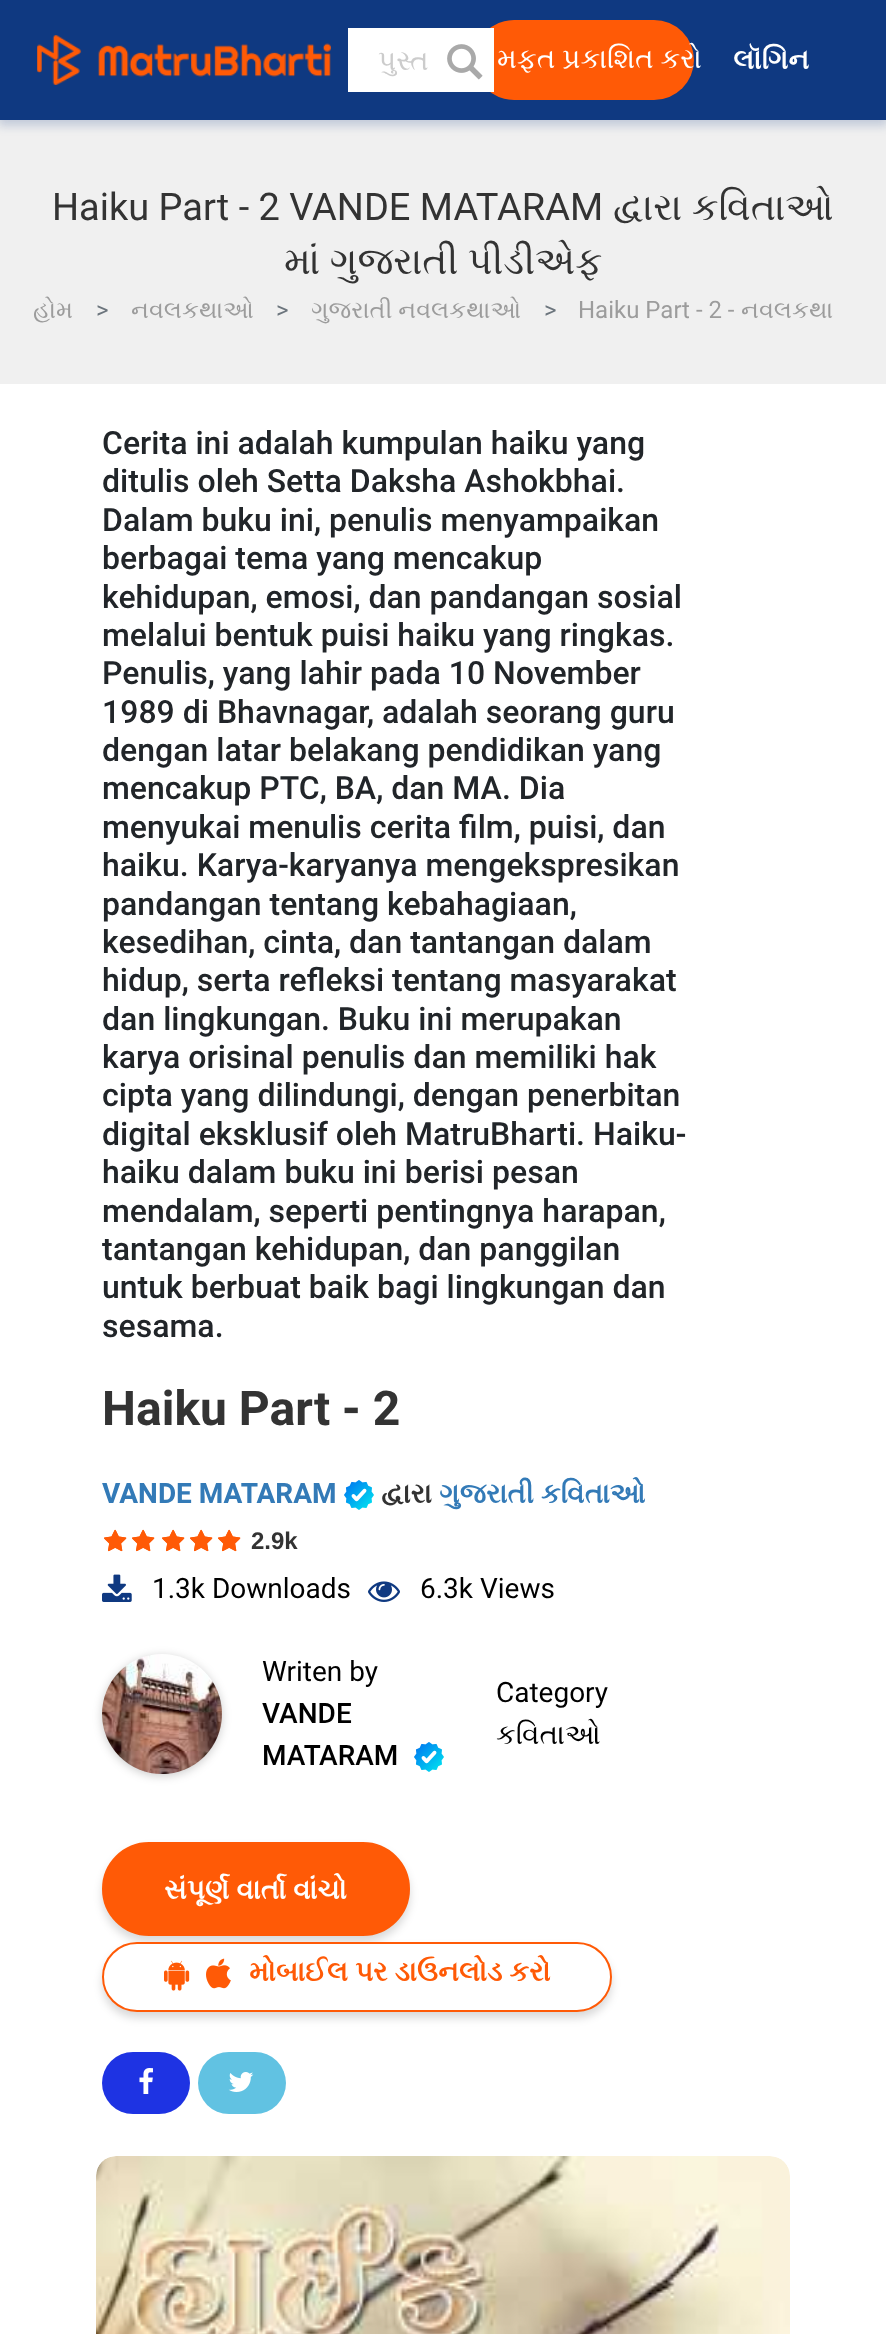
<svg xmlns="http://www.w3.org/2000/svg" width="886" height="2334">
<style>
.a{font:28px FreeSerif;fill:#ccc}
.b{font:28px FreeSerif;fill:#fff}
.c{font:bold 28px FreeSerif;fill:#fff}
.d{font:38px Roboto;fill:#333}
.e{font:38px FreeSerif;fill:#333}
.f{font:24px FreeSerif;fill:#9c9c9c}
.g{font:24px Roboto;fill:#6c757d}
.h{font:24px Roboto;fill:#9c9c9c}
.i{font:500 32px Roboto;fill:#212529}
.j{font:bold 48px Roboto;fill:#333}
.k{font:bold 28px Roboto;fill:#337ab7}
.l{font:bold 28px FreeSerif;fill:#333}
.m{font:bold 28px FreeSerif;fill:#337ab7}
.n{font:bold 24px Liberation Sans;fill:#333}
.o{font:28px Roboto;fill:#000}
.p{font:500 28px Roboto;fill:#000}
.q{font:28px FreeSerif;fill:#000}
.r{font:bold 28px FreeSerif;fill:#ff5a06}
</style>
<defs>
<clipPath id="clip1"><path d="M372 44h68v34H372z"/></clipPath>
<clipPath id="clip2"><path d="M30 180h826v144H30z"/></clipPath>
</defs>
<rect width="100%" height="100%" fill="#fff"/>
<path fill="#f0f0f0" d="M0 120h886v264H0z"/>
<path fill="#0f398133" filter="blur(5px)" d="M-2 2h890v124H-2z"/>
<path fill="#0f3981" d="M0 0h886v120H0z"/>
<image href="1.png" x="37" y="35" width="294" height="50"/>
<rect fill="#ff5a06" x="474" y="20" width="220" height="80" rx="40"/>
<path fill="#fff" d="M348 28h146v64H348z"/>
<image href="2.png" x="447" y="44" width="36" height="36"/>
<image href="3.png" x="344" y="1480" width="30" height="30"/>
<image href="4.png" x="104" y="1529" width="23" height="23"/>
<image href="4.png" x="132" y="1529" width="23" height="23"/>
<image href="4.png" x="162" y="1529" width="23" height="23"/>
<image href="4.png" x="190" y="1529" width="23" height="23"/>
<image href="4.png" x="218" y="1529" width="23" height="23"/>
<image href="5.png" x="104" y="1529" width="23" height="23"/>
<image href="5.png" x="132" y="1529" width="23" height="23"/>
<image href="5.png" x="162" y="1529" width="23" height="23"/>
<image href="5.png" x="190" y="1529" width="23" height="23"/>
<image href="5.png" x="218" y="1529" width="23" height="23"/>
<image href="6.png" x="102" y="1574" width="30" height="28"/>
<image href="7.png" x="368" y="1581" width="32" height="21"/>
<rect fill="#00000033" filter="blur(5px)" x="102" y="1656" width="120" height="120" rx="60"/>
<image href="8.png" x="102" y="1654" width="120" height="120"/>
<image href="3.png" x="414" y="1742" width="30" height="30"/>
<rect fill="#00000026" filter="blur(4px)" x="102" y="1848" width="308" height="94" rx="47"/>
<rect fill="#ff5a06" stroke="#ff5a06" stroke-width="2" x="103" y="1843" width="306" height="92" rx="46"/>
<rect fill="#00000026" filter="blur(4px)" x="102" y="1948" width="510" height="70" rx="35"/>
<rect fill="#fff" stroke="#ff5a06" stroke-width="2" x="103" y="1943" width="508" height="68" rx="34"/>
<image href="9.png" x="164" y="1960" width="26" height="31"/>
<image href="10.png" x="206" y="1958" width="25" height="31"/>
<rect fill="#1e33e3" x="102" y="2052" width="88" height="62" rx="31"/>
<image href="11.png" x="139" y="2068" width="14" height="26"/>
<rect fill="#61c2e2" x="198" y="2052" width="88" height="62" rx="31"/>
<image href="12.png" x="228" y="2072" width="26" height="20"/>
<image href="13.png" x="96" y="2156" width="694" height="178"/>
<g clip-path="url(#clip1)">
<text class="a" x="378" y="70">પુસ્ત</text>
</g>
<text class="b" x="497" y="68">મફત પ્રકાશિત કરો</text>
<text class="c" x="733" y="69">લૉગિન</text>
<text class="d" x="52" y="220">Haiku Part - 2 VANDE MATARAM</text>
<text class="e" x="613" y="220">દ્વારા કવિતાઓ</text>
<text class="e" x="284" y="274">માં ગુજરાતી પીડીએફ</text>
<g clip-path="url(#clip2)">
<text class="f" x="33" y="318">હોમ</text>
</g>
<text class="g" x="96" y="318">&gt;</text>
<text class="f" x="131" y="318">નવલકથાઓ</text>
<text class="g" x="276" y="318">&gt;</text>
<text class="f" x="311" y="318">ગુજરાતી નવલકથાઓ</text>
<text class="g" x="544" y="318">&gt;</text>
<text class="h" x="578" y="318">Haiku Part - 2 -</text>
<text class="f" x="741" y="318">નવલકથા</text>
<text class="i" x="102" y="454">Cerita ini adalah kumpulan haiku yang</text>
<text class="i" x="102" y="492">ditulis oleh Setta Daksha Ashokbhai.</text>
<text class="i" x="102" y="531">Dalam buku ini, penulis menyampaikan</text>
<text class="i" x="102" y="569">berbagai tema yang mencakup</text>
<text class="i" x="102" y="608">kehidupan, emosi, dan pandangan sosial</text>
<text class="i" x="102" y="646">melalui bentuk puisi haiku yang ringkas.</text>
<text class="i" x="102" y="684">Penulis, yang lahir pada 10 November</text>
<text class="i" x="102" y="723">1989 di Bhavnagar, adalah seorang guru</text>
<text class="i" x="102" y="761">dengan latar belakang pendidikan yang</text>
<text class="i" x="102" y="799">mencakup PTC, BA, dan MA. Dia</text>
<text class="i" x="102" y="838">menyukai menulis cerita film, puisi, dan</text>
<text class="i" x="102" y="876">haiku. Karya-karyanya mengekspresikan</text>
<text class="i" x="102" y="915">pandangan tentang kebahagiaan,</text>
<text class="i" x="102" y="953">kesedihan, cinta, dan tantangan dalam</text>
<text class="i" x="102" y="991">hidup, serta refleksi tentang masyarakat</text>
<text class="i" x="102" y="1030">dan lingkungan. Buku ini merupakan</text>
<text class="i" x="102" y="1068">karya orisinal penulis dan memiliki hak</text>
<text class="i" x="102" y="1106">cipta yang dilindungi, dengan penerbitan</text>
<text class="i" x="102" y="1145">digital eksklusif oleh MatruBharti. Haiku-</text>
<text class="i" x="102" y="1183">haiku dalam buku ini berisi pesan</text>
<text class="i" x="102" y="1222">mendalam, seperti pentingnya harapan,</text>
<text class="i" x="102" y="1260">tantangan kehidupan, dan panggilan</text>
<text class="i" x="102" y="1298">untuk berbuat baik bagi lingkungan dan</text>
<text class="i" x="102" y="1337">sesama.</text>
<text class="j" x="102" y="1425">Haiku Part - 2</text>
<text class="k" x="102" y="1503">VANDE MATARAM</text>
<text class="l" x="381" y="1503">દ્વારા</text>
<text class="m" x="439" y="1503">ગુજરાતી કવિતાઓ</text>
<text class="n" x="251" y="1549">2.9k</text>
<text class="o" x="152" y="1598">1.3k Downloads</text>
<text class="o" x="420" y="1598">6.3k Views</text>
<text class="o" x="262" y="1681">Writen by</text>
<text class="p" x="262" y="1723">VANDE</text>
<text class="p" x="262" y="1765">MATARAM</text>
<text class="o" x="496" y="1702">Category</text>
<text class="q" x="496" y="1744">કવિતાઓ</text>
<text class="c" x="164" y="1899">સંપૂર્ણ વાર્તા વાંચો</text>
<text class="r" x="249" y="1981">મોબાઈલ પર ડાઉનલોડ કરો</text>
</svg>
